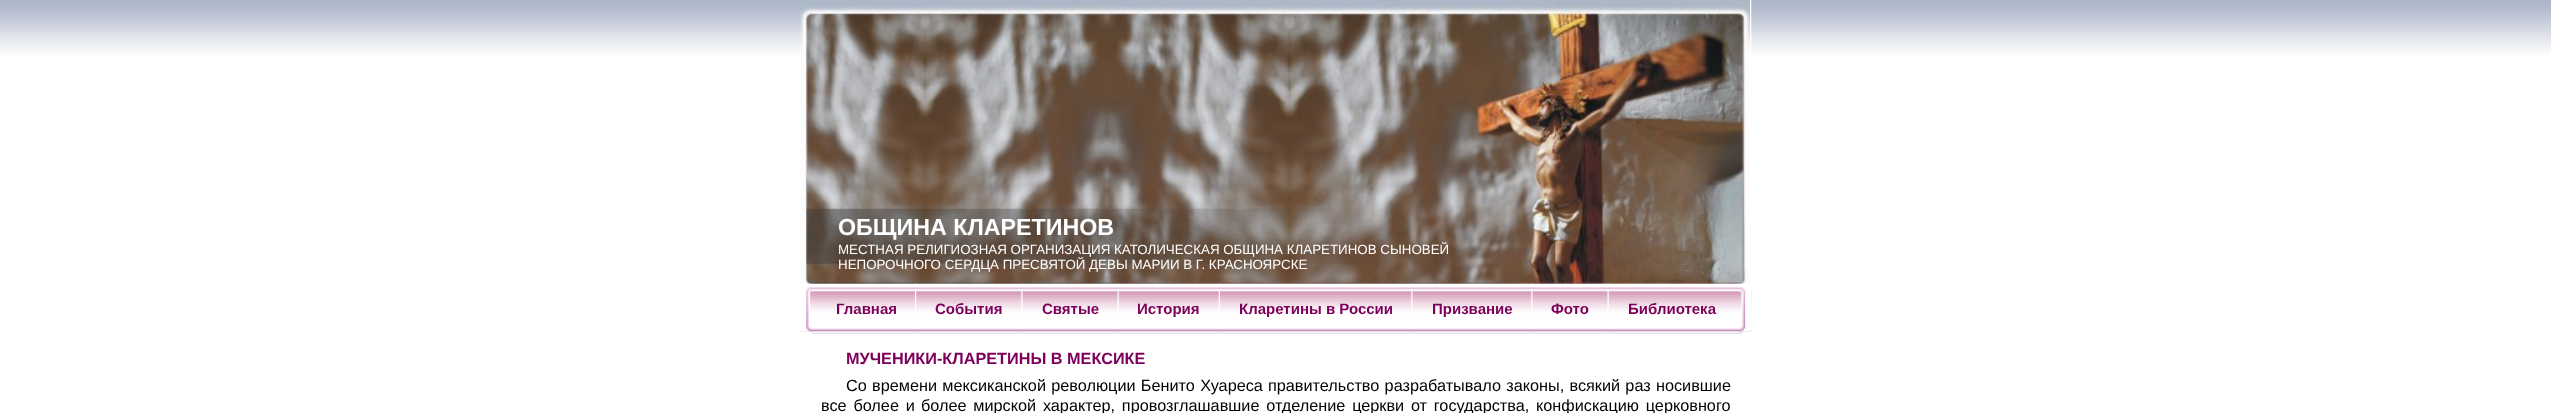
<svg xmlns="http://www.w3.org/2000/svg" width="2551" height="413">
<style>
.a{font:bold 23.25px Liberation Sans;fill:#fff}
.b{font:13.35px Liberation Sans;fill:#fff}
.c{font:bold 15px Liberation Sans;fill:#7c005a}
.d{font:bold 16.25px Liberation Sans;fill:#7c005a}
.e{font:16.25px Liberation Sans;fill:#000}
</style>
<rect width="100%" height="100%" fill="#fff"/>
<image href="1.png" x="0" y="0" width="800" height="55"/>
<image href="2.png" x="1751" y="0" width="800" height="55"/>
<image href="3.png" x="800" y="0" width="950" height="284"/>
<image href="4.png" x="800" y="287" width="952" height="45"/>
<image href="5.png" x="800" y="283" width="13" height="49"/>
<image href="6.png" x="915" y="283" width="2" height="49"/>
<image href="7.png" x="1021" y="283" width="2" height="49"/>
<image href="8.png" x="1117" y="283" width="2" height="49"/>
<image href="9.png" x="1218" y="283" width="2" height="49"/>
<image href="10.png" x="1411" y="283" width="2" height="49"/>
<image href="11.png" x="1531" y="283" width="2" height="49"/>
<image href="12.png" x="1607" y="283" width="2" height="49"/>
<image href="13.png" x="1738" y="283" width="14" height="49"/>
<image href="14.png" x="812" y="332" width="931" height="2"/>
<text class="a" x="838" y="235">ОБЩИНА КЛАРЕТИНОВ</text>
<text class="b" x="838" y="254">МЕСТНАЯ РЕЛИГИОЗНАЯ ОРГАНИЗАЦИЯ КАТОЛИЧЕСКАЯ ОБЩИНА КЛАРЕТИНОВ СЫНОВЕЙ</text>
<text class="b" x="838" y="269">НЕПОРОЧНОГО СЕРДЦА ПРЕСВЯТОЙ ДЕВЫ МАРИИ В Г. КРАСНОЯРСКЕ</text>
<text class="c" x="836" y="314">Главная</text>
<text class="c" x="935" y="314">События</text>
<text class="c" x="1042" y="314">Святые</text>
<text class="c" x="1137" y="314">История</text>
<text class="c" x="1239" y="314">Кларетины в России</text>
<text class="c" x="1432" y="314">Призвание</text>
<text class="c" x="1551" y="314">Фото</text>
<text class="c" x="1628" y="314">Библиотека</text>
<text class="d" x="846" y="364">МУЧЕНИКИ-КЛАРЕТИНЫ В МЕКСИКЕ</text>
<text class="e" x="846" y="391" word-spacing="0.75">Со времени мексиканской революции Бенито Хуареса</text>
<text class="e" x="1268" y="391" word-spacing="0.75">правительство разрабатывало законы, всякий раз носившие</text>
<text class="e" x="821" y="411" word-spacing="2.25">все более и</text>
<text class="e" x="921" y="411" word-spacing="2.25">более мирской характер, провозглашавшие отделение церкви от государства,</text>
<text class="e" x="1536" y="411" word-spacing="2.25">конфискацию церковного</text>
</svg>
